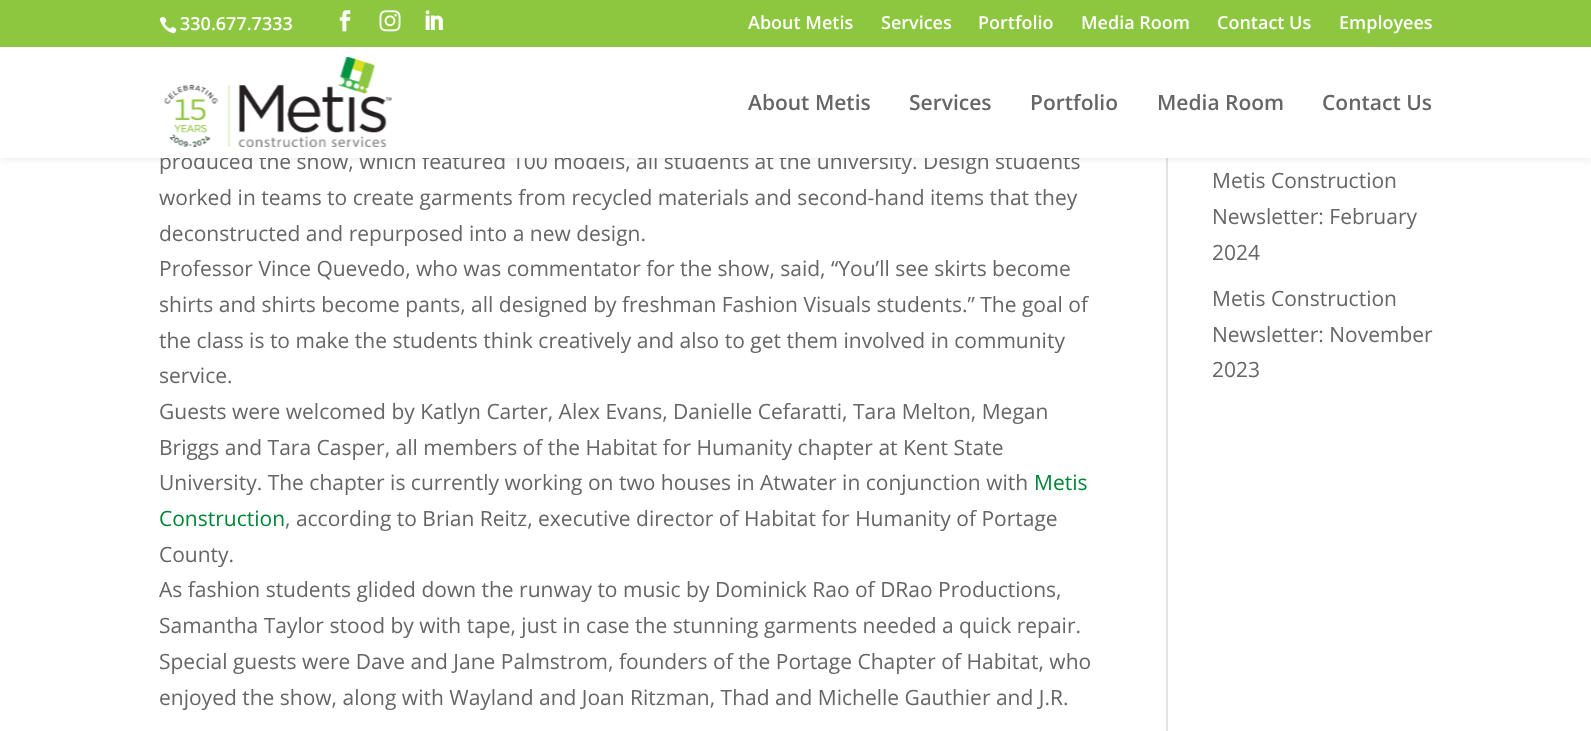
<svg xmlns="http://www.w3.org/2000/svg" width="1591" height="731">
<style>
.a{font:600 18px Open Sans;fill:#fff}
.b{font:21px Open Sans;fill:#666}
.c{font:600 21px Open Sans;fill:#666}
.d{font:21px Open Sans;fill:#008637}
</style>
<rect width="100%" height="100%" fill="#fff"/>
<path fill="#e2e2e2" d="M1166 158h2v573H1166z"/>
<path fill="#0000001a" filter="blur(5px)" d="M0 47h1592v111H0z"/>
<path fill="#8dc73f" d="M0 0h1591v47H0z"/>
<image href="1.png" x="159" y="16" width="18" height="18"/>
<image href="2.png" x="339" y="10" width="12" height="22"/>
<image href="3.png" x="379" y="10" width="22" height="22"/>
<image href="4.png" x="425" y="10" width="18" height="20"/>
<text class="a" x="180" y="30">330.677.7333</text>
<text class="a" x="748" y="29">About Metis</text>
<text class="a" x="881" y="29">Services</text>
<text class="a" x="978" y="29">Portfolio</text>
<text class="a" x="1081" y="29">Media Room</text>
<text class="a" x="1217" y="29">Contact Us</text>
<text class="a" x="1339" y="29">Employees</text>
<text class="b" x="159" y="169">produced the show, which featured 100 models, all students at the university. Design students</text>
<path fill="#fff" d="M0 47h1591v111H0z"/>
<text class="c" x="1322" y="110">Contact Us</text>
<text class="c" x="1157" y="110">Media Room</text>
<text class="c" x="1030" y="110">Portfolio</text>
<text class="c" x="909" y="110">Services</text>
<text class="c" x="748" y="110">About Metis</text>
<image href="5.png" x="164" y="57" width="228" height="90"/>
<text class="b" x="159" y="205">worked in teams to create garments from recycled materials and second-hand items that they</text>
<text class="b" x="159" y="241">deconstructed and repurposed into a new design.</text>
<text class="b" x="159" y="276">Professor Vince Quevedo, who was commentator for the show, said, “You’ll see skirts become</text>
<text class="b" x="159" y="312">shirts and shirts become pants, all designed by freshman Fashion Visuals students.” The goal of</text>
<text class="b" x="159" y="348">the class is to make the students think creatively and also to get them involved in community</text>
<text class="b" x="159" y="383">service.</text>
<text class="b" x="159" y="419">Guests were welcomed by Katlyn Carter, Alex Evans, Danielle Cefaratti, Tara Melton, Megan</text>
<text class="b" x="159" y="455">Briggs and Tara Casper, all members of the Habitat for Humanity chapter at Kent State</text>
<text class="b" x="159" y="490">University. The chapter is currently working on two houses in Atwater in conjunction with</text>
<text class="d" x="1034" y="490">Metis</text>
<text class="d" x="159" y="526">Construction</text>
<text class="b" x="285" y="526">, according to Brian Reitz, executive director of Habitat for Humanity of Portage</text>
<text class="b" x="159" y="562">County.</text>
<text class="b" x="159" y="597">As fashion students glided down the runway to music by Dominick Rao of DRao Productions,</text>
<text class="b" x="159" y="633">Samantha Taylor stood by with tape, just in case the stunning garments needed a quick repair.</text>
<text class="b" x="159" y="669">Special guests were Dave and Jane Palmstrom, founders of the Portage Chapter of Habitat, who</text>
<text class="b" x="159" y="705">enjoyed the show, along with Wayland and Joan Ritzman, Thad and Michelle Gauthier and J.R.</text>
<text class="b" x="1212" y="188">Metis Construction</text>
<text class="b" x="1212" y="224">Newsletter: February</text>
<text class="b" x="1212" y="260">2024</text>
<text class="b" x="1212" y="306">Metis Construction</text>
<text class="b" x="1212" y="342">Newsletter: November</text>
<text class="b" x="1212" y="377">2023</text>
</svg>
